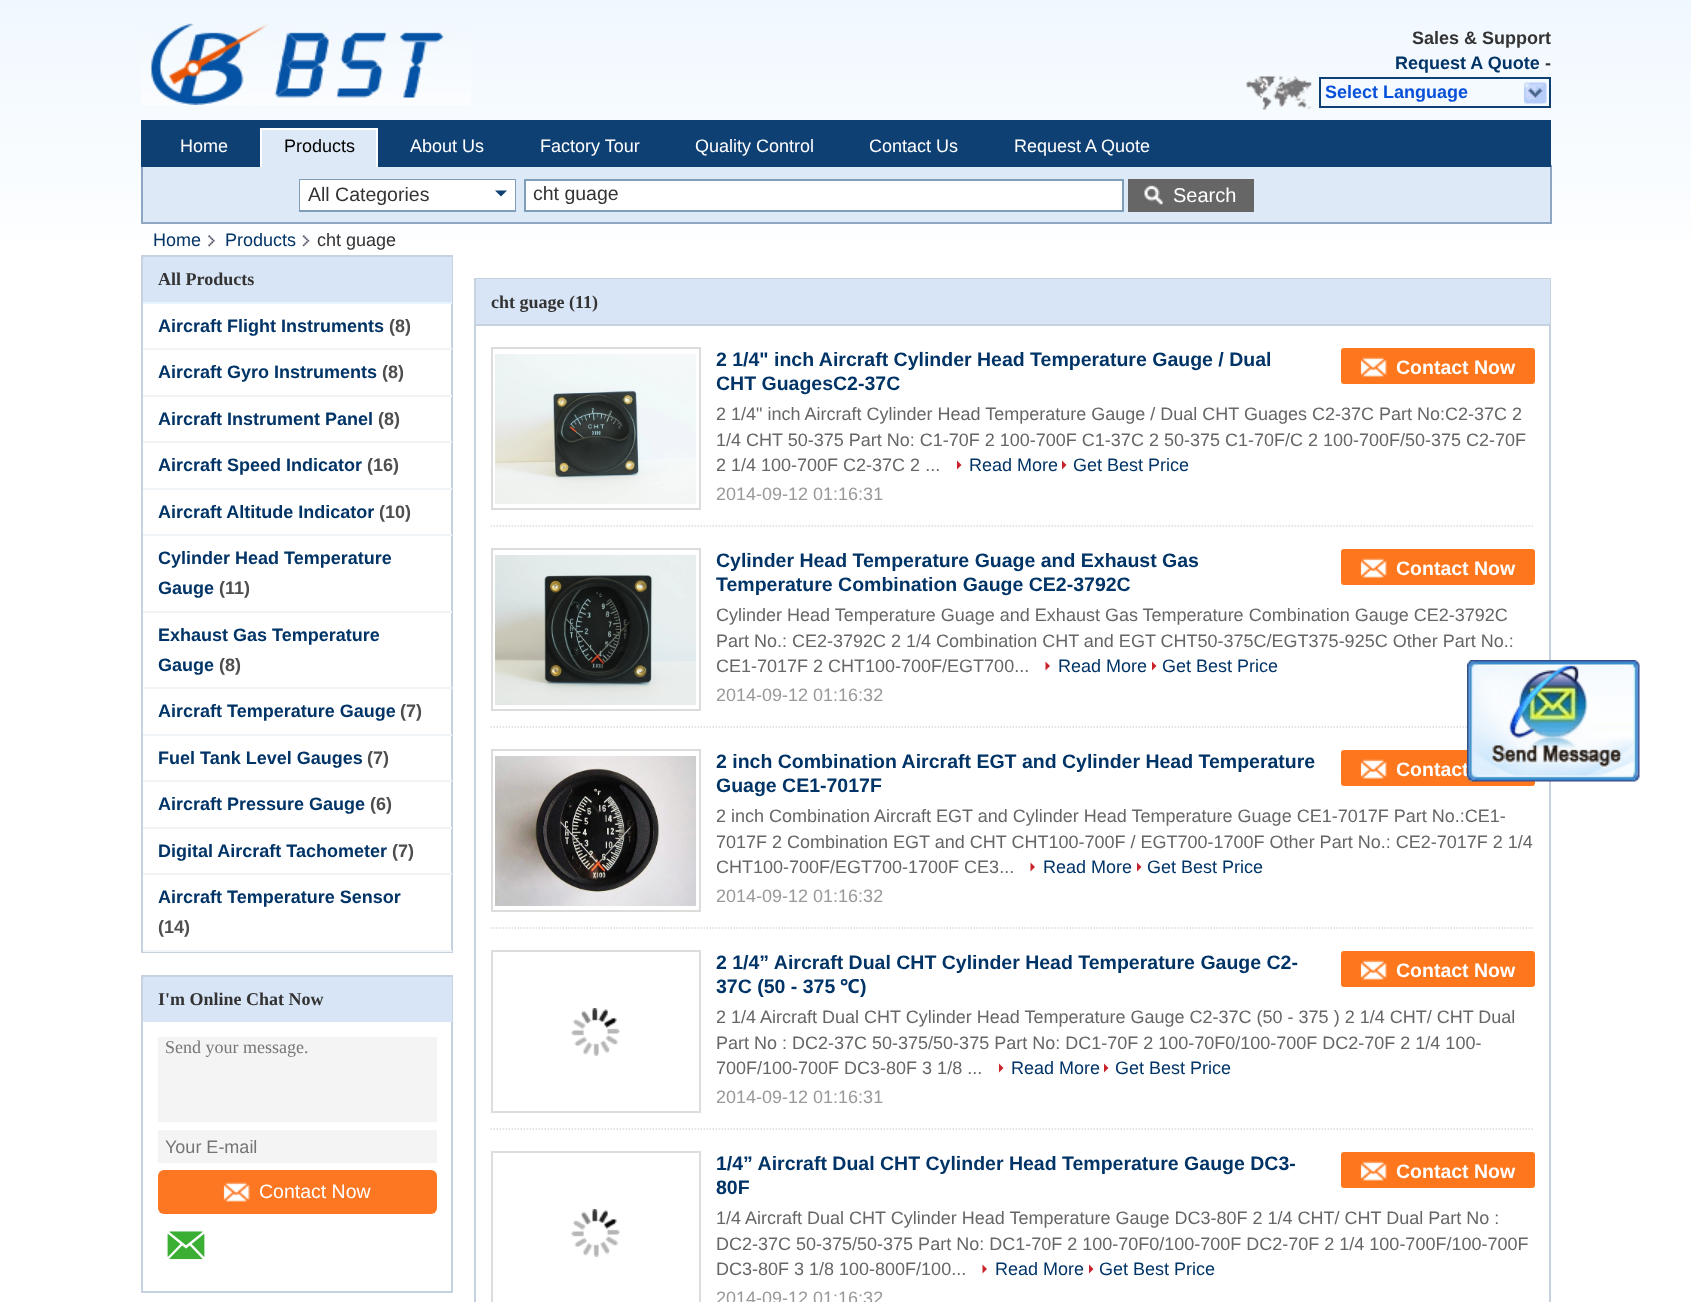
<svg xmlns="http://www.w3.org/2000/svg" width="1691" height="1302">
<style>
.a{font:bold 18px Liberation Sans;fill:#333}
.b{font:bold 18px Liberation Sans;fill:#036}
.c{font:bold 18px Liberation Sans;fill:#0750d9}
.d{font:18px Liberation Sans;fill:#fff}
.e{font:18px Liberation Sans;fill:#000}
.f{font:19.5px Liberation Sans;fill:#333}
.g{font:20px Liberation Sans;fill:#fff}
.h{font:18px Liberation Sans;fill:#036}
.i{font:18px Liberation Sans;fill:#333}
.j{font:bold 18px Liberation Serif;fill:#333}
.k{font:bold 18px Liberation Sans;fill:#4e4e4e}
.l{font:18px Liberation Serif;fill:#757575}
.m{font:18px Liberation Sans;fill:#757575}
.n{font:19.5px Liberation Sans;fill:#fff}
.o{font:bold 19.5px Liberation Sans;fill:#036}
.p{font:bold 19.5px Liberation Sans;fill:#fff}
.q{font:18px Liberation Sans;fill:#666}
.r{font:18px Liberation Sans;fill:#999}
.s{font:bold 19.5px Noto Sans;fill:#036}
</style>
<defs>
<linearGradient id="g1" gradientUnits="userSpaceOnUse" x1="846" y1="0" x2="846" y2="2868"><stop offset="0" stop-color="#f0f8ff"/><stop offset="0.1" stop-color="#fff"/><stop offset="1" stop-color="#fff"/></linearGradient>
<clipPath id="clip1"><path d="M141 120h1410v47H141z"/></clipPath>
</defs>
<rect width="100%" height="100%" fill="#fff"/>
<path fill="url(#g1)" d="M0 0h1691v239H0z"/>
<image href="1.png" x="141" y="23" width="330" height="82"/>
<image href="2.png" x="1246" y="76" width="66" height="34"/>
<path fill="none" stroke="#0e4074" stroke-width="2" d="M1320 78h230v29H1320z"/>
<image href="3.png" x="1524" y="82" width="23" height="22"/>
<path fill="#8ea6c1" d="M1550 165h2v59H1550z"/>
<path fill="#8ea6c1" d="M141 222h1410v2H141z"/>
<path fill="#8ea6c1" d="M141 165h2v59H141z"/>
<path fill="#0e4074" d="M141 120h1410v47H141z"/>
<path fill="#dde9f6" d="M262 130h114v37H262z"/>
<path fill="#dde9f6" d="M143 167h1407v55H143z"/>
<g clip-path="url(#clip1)">
<path fill="none" stroke="#fff" stroke-width="2" d="M261 129h116v58H261z"/>
</g>
<path fill="none" stroke="#7f9db9" stroke-width="2" d="M300 180h215v31H300z"/>
<path fill="#fff" d="M300 180h215v30H300z"/>
<path fill="#0e4074" d="M495 190.5h12l-6 6z"/>
<path fill="#fff" stroke="#7f9db9" stroke-width="2" d="M525 180h598v31H525z"/>
<path fill="#666" d="M1128 179h126v33H1128z"/>
<image href="4.png" x="1144" y="185" width="19" height="20"/>
<image href="5.png" x="208" y="235" width="7" height="12"/>
<image href="6.png" x="302" y="235" width="8" height="12"/>
<path fill="none" stroke="#c6d2e0" stroke-width="2" d="M142 256h310v696H142z"/>
<path fill="#d8e5f6" d="M143 257h309v45H143z"/>
<path fill="#e7f3ff" d="M143 302h309v2H143z"/>
<path fill="#f0f4f6" d="M143 348h309v2H143z"/>
<path fill="#f0f4f6" d="M143 395h309v2H143z"/>
<path fill="#f0f4f6" d="M143 441h309v2H143z"/>
<path fill="#f0f4f6" d="M143 488h309v2H143z"/>
<path fill="#f0f4f6" d="M143 534h309v2H143z"/>
<path fill="#f0f4f6" d="M143 611h309v2H143z"/>
<path fill="#f0f4f6" d="M143 687h309v2H143z"/>
<path fill="#f0f4f6" d="M143 734h309v2H143z"/>
<path fill="#f0f4f6" d="M143 780h309v2H143z"/>
<path fill="#f0f4f6" d="M143 827h309v2H143z"/>
<path fill="#f0f4f6" d="M143 873h309v2H143z"/>
<path fill="#f0f4f6" d="M143 950h309v2H143z"/>
<path fill="none" stroke="#c6d2e0" stroke-width="2" d="M142 976h310v316H142z"/>
<path fill="#d8e5f6" d="M143 977h309v45H143z"/>
<path fill="#f4f4f4" d="M158 1037h279v85H158z"/>
<path fill="#f4f4f4" d="M158 1130h279v33H158z"/>
<rect fill="#fd7722" x="158" y="1170" width="279" height="44" rx="6"/>
<image href="7.png" x="223" y="1182" width="27" height="20"/>
<image href="8.png" x="167" y="1231" width="38" height="29"/>
<path fill="none" stroke="#c6d2e0" stroke-width="2" d="M475 279h1075v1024H475z"/>
<path fill="#d8e5f6" d="M476 279h1074v45H476z"/>
<path fill="#c6d2e0" d="M476 324h1074v2H476z"/>
<path fill="none" stroke="#dcdcdc" stroke-width="1.5" stroke-dasharray="1.5 1.5" d="M490.5 526h1044"/>
<path fill="none" stroke="#dcdcdc" stroke-width="2" d="M492 348h208v161H492z"/>
<image href="9.png" x="495" y="354" width="201" height="150"/>
<rect fill="#ff771c" x="1341" y="348" width="194" height="36" rx="3"/>
<image href="10.png" x="1360" y="357" width="27" height="20"/>
<path fill="#c9242b" d="M957 469.5v-9l4.5 4.5z"/>
<path fill="#c9242b" d="M1062 469.5v-9l4.5 4.5z"/>
<path fill="none" stroke="#dcdcdc" stroke-width="1.5" stroke-dasharray="1.5 1.5" d="M490.5 727h1044"/>
<path fill="none" stroke="#dcdcdc" stroke-width="2" d="M492 549h208v161H492z"/>
<image href="11.png" x="495" y="555" width="201" height="150"/>
<rect fill="#ff771c" x="1341" y="549" width="194" height="36" rx="3"/>
<image href="10.png" x="1360" y="558" width="27" height="20"/>
<path fill="#c9242b" d="M1045.5 670.5v-9l4.5 4.5z"/>
<path fill="#c9242b" d="M1152 670.5v-9l4.5 4.5z"/>
<path fill="none" stroke="#dcdcdc" stroke-width="1.5" stroke-dasharray="1.5 1.5" d="M490.5 928h1044"/>
<path fill="none" stroke="#dcdcdc" stroke-width="2" d="M492 750h208v161H492z"/>
<image href="12.png" x="495" y="756" width="201" height="150"/>
<rect fill="#ff771c" x="1341" y="750" width="194" height="36" rx="3"/>
<image href="10.png" x="1360" y="759" width="27" height="20"/>
<path fill="#c9242b" d="M1030.5 871.5v-9l4.5 4.5z"/>
<path fill="#c9242b" d="M1137 871.5v-9l4.5 4.5z"/>
<path fill="none" stroke="#dcdcdc" stroke-width="1.5" stroke-dasharray="1.5 1.5" d="M490.5 1129h1044"/>
<path fill="none" stroke="#dcdcdc" stroke-width="2" d="M492 951h208v161H492z"/>
<image href="13.png" x="571" y="1008" width="49" height="48"/>
<rect fill="#ff771c" x="1341" y="951" width="194" height="36" rx="3"/>
<image href="10.png" x="1360" y="960" width="27" height="20"/>
<path fill="#c9242b" d="M999 1072.5v-9l4.5 4.5z"/>
<path fill="#c9242b" d="M1104 1072.5v-9l4.5 4.5z"/>
<path fill="none" stroke="#dcdcdc" stroke-width="2" d="M492 1152h208v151H492z"/>
<image href="13.png" x="571" y="1209" width="49" height="48"/>
<rect fill="#ff771c" x="1341" y="1152" width="194" height="36" rx="3"/>
<image href="10.png" x="1360" y="1161" width="27" height="20"/>
<path fill="#c9242b" d="M982.5 1273.5v-9l4.5 4.5z"/>
<path fill="#c9242b" d="M1089 1273.5v-9l4.5 4.5z"/>
<text class="a" x="1412" y="44">Sales &amp; Support</text>
<text class="b" x="1395" y="69">Request A Quote</text>
<text class="a" x="1545" y="69">-</text>
<text class="c" x="1325" y="98">Select Language</text>
<text class="d" x="180" y="152">Home</text>
<text class="e" x="284" y="152">Products</text>
<text class="d" x="410" y="152">About Us</text>
<text class="d" x="540" y="152">Factory Tour</text>
<text class="d" x="695" y="152">Quality Control</text>
<text class="d" x="869" y="152">Contact Us</text>
<text class="d" x="1014" y="152">Request A Quote</text>
<text class="f" x="308" y="201">All Categories</text>
<text class="f" x="533" y="200">cht guage</text>
<text class="g" x="1173" y="202">Search</text>
<text class="h" x="153" y="246">Home</text>
<text class="h" x="225" y="246">Products</text>
<text class="i" x="317" y="246">cht guage</text>
<text class="j" x="158" y="285">All Products</text>
<text class="b" x="158" y="332">Aircraft Flight Instruments</text>
<text class="k" x="389" y="332">(8)</text>
<text class="b" x="158" y="378">Aircraft Gyro Instruments</text>
<text class="k" x="382" y="378">(8)</text>
<text class="b" x="158" y="425">Aircraft Instrument Panel</text>
<text class="k" x="378" y="425">(8)</text>
<text class="b" x="158" y="471">Aircraft Speed Indicator</text>
<text class="k" x="367" y="471">(16)</text>
<text class="b" x="158" y="518">Aircraft Altitude Indicator</text>
<text class="k" x="379" y="518">(10)</text>
<text class="b" x="158" y="564">Cylinder Head Temperature</text>
<text class="b" x="158" y="594">Gauge</text>
<text class="k" x="219" y="594">(11)</text>
<text class="b" x="158" y="641">Exhaust Gas Temperature</text>
<text class="b" x="158" y="671">Gauge</text>
<text class="k" x="219" y="671">(8)</text>
<text class="b" x="158" y="717">Aircraft Temperature Gauge</text>
<text class="k" x="400" y="717">(7)</text>
<text class="b" x="158" y="764">Fuel Tank Level Gauges</text>
<text class="k" x="367" y="764">(7)</text>
<text class="b" x="158" y="810">Aircraft Pressure Gauge</text>
<text class="k" x="370" y="810">(6)</text>
<text class="b" x="158" y="857">Digital Aircraft Tachometer</text>
<text class="k" x="392" y="857">(7)</text>
<text class="b" x="158" y="903">Aircraft Temperature Sensor</text>
<text class="k" x="158" y="933">(14)</text>
<text class="j" x="158" y="1005">I'm Online Chat Now</text>
<text class="l" x="165" y="1053">Send your message.</text>
<text class="m" x="165" y="1153">Your E-mail</text>
<text class="n" x="259" y="1198">Contact Now</text>
<text class="j" x="491" y="308">cht guage (11)</text>
<text class="o" x="716" y="366">2 1/4" inch Aircraft Cylinder Head Temperature Gauge / Dual</text>
<text class="p" x="1396" y="374">Contact Now</text>
<text class="o" x="716" y="390">CHT GuagesC2-37C</text>
<text class="q" x="716" y="420">2 1/4" inch Aircraft Cylinder Head Temperature Gauge / Dual CHT Guages C2-37C Part No:C2-37C 2</text>
<text class="q" x="716" y="446">1/4 CHT 50-375 Part No: C1-70F 2 100-700F C1-37C 2 50-375 C1-70F/C 2 100-700F/50-375 C2-70F</text>
<text class="q" x="716" y="471">2 1/4 100-700F C2-37C 2 ...</text>
<text class="h" x="969" y="471">Read More</text>
<text class="h" x="1073" y="471">Get Best Price</text>
<text class="r" x="716" y="500">2014-09-12 01:16:31</text>
<text class="o" x="716" y="567">Cylinder Head Temperature Guage and Exhaust Gas</text>
<text class="p" x="1396" y="575">Contact Now</text>
<text class="o" x="716" y="591">Temperature Combination Gauge CE2-3792C</text>
<text class="q" x="716" y="621">Cylinder Head Temperature Guage and Exhaust Gas Temperature Combination Gauge CE2-3792C</text>
<text class="q" x="716" y="647">Part No.: CE2-3792C 2 1/4 Combination CHT and EGT CHT50-375C/EGT375-925C Other Part No.:</text>
<text class="q" x="716" y="672">CE1-7017F 2 CHT100-700F/EGT700...</text>
<text class="h" x="1058" y="672">Read More</text>
<text class="h" x="1162" y="672">Get Best Price</text>
<text class="r" x="716" y="701">2014-09-12 01:16:32</text>
<text class="o" x="716" y="768">2 inch Combination Aircraft EGT and Cylinder Head Temperature</text>
<text class="p" x="1396" y="776">Contact</text>
<text class="o" x="716" y="792">Guage CE1-7017F</text>
<text class="q" x="716" y="822">2 inch Combination Aircraft EGT and Cylinder Head Temperature Guage CE1-7017F Part No.:CE1-</text>
<text class="q" x="716" y="848">7017F 2 Combination EGT and CHT CHT100-700F / EGT700-1700F Other Part No.: CE2-7017F 2 1/4</text>
<text class="q" x="716" y="873">CHT100-700F/EGT700-1700F CE3...</text>
<text class="h" x="1043" y="873">Read More</text>
<text class="h" x="1147" y="873">Get Best Price</text>
<text class="r" x="716" y="902">2014-09-12 01:16:32</text>
<text class="o" x="716" y="969">2 1/4” Aircraft Dual CHT Cylinder Head Temperature Gauge C2-</text>
<text class="p" x="1396" y="977">Contact Now</text>
<text class="o" x="716" y="993">37C (50 - 375</text>
<text class="s" x="840" y="993">℃</text>
<text class="o" x="860" y="993">)</text>
<text class="q" x="716" y="1023">2 1/4 Aircraft Dual CHT Cylinder Head Temperature Gauge C2-37C (50 - 375 ) 2 1/4 CHT/ CHT Dual</text>
<text class="q" x="716" y="1049">Part No : DC2-37C 50-375/50-375 Part No: DC1-70F 2 100-70F0/100-700F DC2-70F 2 1/4 100-</text>
<text class="q" x="716" y="1074">700F/100-700F DC3-80F 3 1/8 ...</text>
<text class="h" x="1011" y="1074">Read More</text>
<text class="h" x="1115" y="1074">Get Best Price</text>
<text class="r" x="716" y="1103">2014-09-12 01:16:31</text>
<text class="o" x="716" y="1170">1/4” Aircraft Dual CHT Cylinder Head Temperature Gauge DC3-</text>
<text class="p" x="1396" y="1178">Contact Now</text>
<text class="o" x="716" y="1194">80F</text>
<text class="q" x="716" y="1224">1/4 Aircraft Dual CHT Cylinder Head Temperature Gauge DC3-80F 2 1/4 CHT/ CHT Dual Part No :</text>
<text class="q" x="716" y="1250">DC2-37C 50-375/50-375 Part No: DC1-70F 2 100-70F0/100-700F DC2-70F 2 1/4 100-700F/100-700F</text>
<text class="q" x="716" y="1275">DC3-80F 3 1/8 100-800F/100...</text>
<text class="h" x="995" y="1275">Read More</text>
<text class="h" x="1099" y="1275">Get Best Price</text>
<text class="r" x="716" y="1304">2014-09-12 01:16:32</text>
<image href="14.png" x="1467" y="660" width="173" height="122"/>
</svg>
